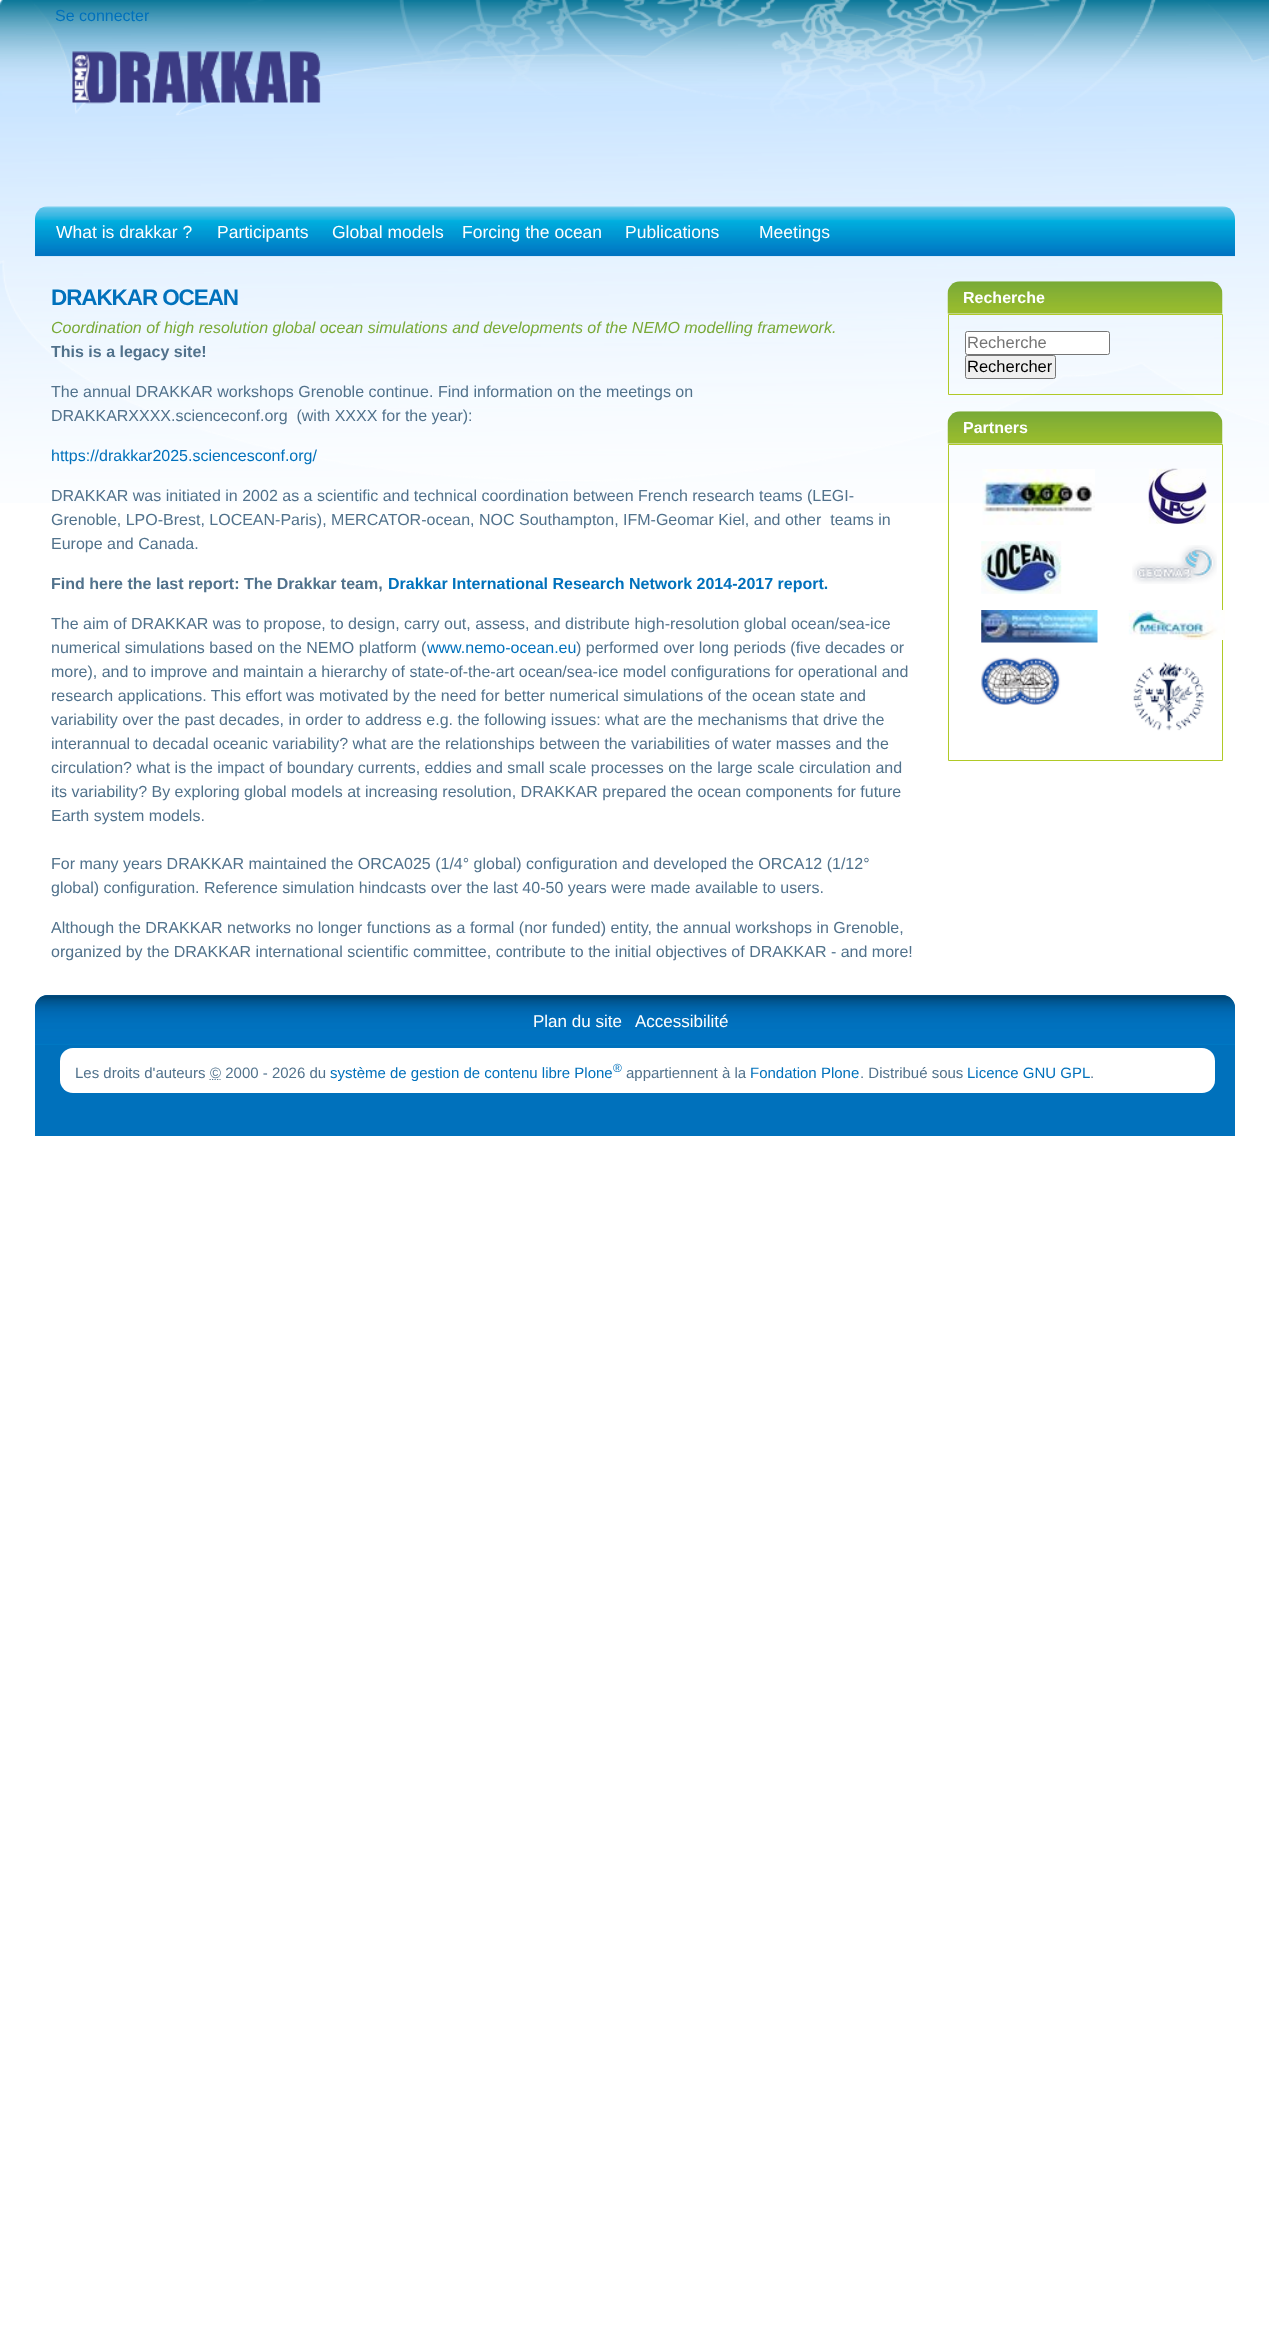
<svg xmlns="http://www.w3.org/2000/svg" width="1269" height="2329">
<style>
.a{font:16px Liberation Sans;fill:#0071bc}
.b{font:17.5px Liberation Sans;fill:#fff}
.c{font:bold 22.5px Liberation Sans;letter-spacing:-1.1px;fill:#0071bc}
.d{font:italic 16px Liberation Sans;fill:#79aa38}
.e{font:bold 16px Liberation Sans;fill:#51728c}
.f{font:16px Liberation Sans;fill:#51728c}
.g{font:bold 16px Liberation Sans;fill:#0071bc}
.h{font:bold 16px Liberation Sans;fill:#fff}
.i{font:16.5px Liberation Sans;fill:#757575}
.j{font:16.5px Liberation Sans;fill:#000}
.k{font:17px Liberation Sans;fill:#fff}
.l{font:15px Liberation Sans;fill:#51728c}
.m{font:15px Liberation Sans;fill:#0071bc}
.n{font:12px Liberation Sans;fill:#0071bc}
</style>
<rect width="100%" height="100%" fill="#fff"/>
<image href="1.png" x="0" y="0" width="1269" height="503"/>
<image href="2.png" x="72" y="51" width="249" height="53"/>
<image href="3.png" x="35" y="206" width="1200" height="51"/>
<image href="4.png" x="947" y="281" width="276" height="33"/>
<path fill="none" stroke="#b0c927" d="M948.5 314.5h274v80H948.5z"/>
<rect fill="#fff" stroke="#767676" x="965.5" y="331.5" width="144" height="23" rx="2"/>
<rect fill="#efefef" stroke="#767676" x="965.5" y="355.5" width="90" height="23" rx="2"/>
<image href="5.png" x="947" y="411" width="276" height="33"/>
<path fill="none" stroke="#b0c927" d="M948.5 444.5h274v316H948.5z"/>
<image href="6.png" x="982" y="469" width="113" height="56"/>
<image href="7.png" x="1148" y="468" width="59" height="56"/>
<image href="8.png" x="981" y="541" width="81" height="53"/>
<image href="9.png" x="1132" y="545" width="85" height="39"/>
<image href="10.png" x="981" y="610" width="117" height="33"/>
<image href="11.png" x="1128" y="610" width="97" height="30"/>
<image href="12.png" x="981" y="657" width="80" height="48"/>
<image href="13.png" x="1133" y="662" width="71" height="69"/>
<path fill="#0071bc" d="M48 995h1174c7 0 13 6 13 13v128h-1200v-128c0-7 6-13 13-13z"/>
<image href="14.png" x="35" y="995" width="1200" height="50"/>
<rect fill="#fff" x="60" y="1048" width="1155" height="45" rx="13"/>
<path fill="none" stroke="#51728c" stroke-width="1.2" stroke-dasharray="1.25 1.25" d="M209.5 1079.5h11"/>
<text class="a" x="55" y="21">Se connecter</text>
<text class="b" x="56" y="238">What is drakkar ?</text>
<text class="b" x="217" y="238">Participants</text>
<text class="b" x="332" y="238">Global models</text>
<text class="b" x="462" y="238">Forcing the ocean</text>
<text class="b" x="625" y="238">Publications</text>
<text class="b" x="759" y="238">Meetings</text>
<text class="c" x="51" y="305">DRAKKAR OCEAN</text>
<text class="d" x="51" y="333">Coordination of high resolution global ocean simulations and developments of the NEMO modelling framework.</text>
<text class="e" x="51" y="357">This is a legacy site!</text>
<text class="f" x="51" y="397">The annual DRAKKAR workshops Grenoble continue. Find information on the meetings on</text>
<text class="f" xml:space="preserve" x="51" y="421">DRAKKARXXXX.scienceconf.org  (with XXXX for the year):</text>
<text class="a" x="51" y="461">https://drakkar2025.sciencesconf.org/</text>
<text class="f" x="51" y="501">DRAKKAR was initiated in 2002 as a scientific and technical coordination between French research teams (LEGI-</text>
<text class="f" xml:space="preserve" x="51" y="525">Grenoble, LPO-Brest, LOCEAN-Paris), MERCATOR-ocean, NOC Southampton, IFM-Geomar Kiel, and other  teams in</text>
<text class="f" x="51" y="549">Europe and Canada.</text>
<text class="e" x="51" y="589">Find here the last report: The Drakkar team,</text>
<text class="g" x="388" y="589">Drakkar International Research Network 2014-2017 report.</text>
<text class="f" x="51" y="629">The aim of DRAKKAR was to propose, to design, carry out, assess, and distribute high-resolution global ocean/sea-ice</text>
<text class="f" x="51" y="653">numerical simulations based on the NEMO platform (</text>
<text class="a" x="427" y="653">www.nemo-ocean.eu</text>
<text class="f" x="576" y="653">) performed over long periods (five decades or</text>
<text class="f" x="51" y="677">more), and to improve and maintain a hierarchy of state-of-the-art ocean/sea-ice model configurations for operational and</text>
<text class="f" x="51" y="701">research applications. This effort was motivated by the need for better numerical simulations of the ocean state and</text>
<text class="f" x="51" y="725">variability over the past decades, in order to address e.g. the following issues: what are the mechanisms that drive the</text>
<text class="f" x="51" y="749">interannual to decadal oceanic variability? what are the relationships between the variabilities of water masses and the</text>
<text class="f" x="51" y="773">circulation? what is the impact of boundary currents, eddies and small scale processes on the large scale circulation and</text>
<text class="f" x="51" y="797">its variability? By exploring global models at increasing resolution, DRAKKAR prepared the ocean components for future</text>
<text class="f" x="51" y="821">Earth system models.</text>
<text class="f" x="51" y="869">For many years DRAKKAR maintained the ORCA025 (1/4° global) configuration and developed the ORCA12 (1/12°</text>
<text class="f" x="51" y="893">global) configuration. Reference simulation hindcasts over the last 40-50 years were made available to users.</text>
<text class="f" x="51" y="933">Although the DRAKKAR networks no longer functions as a formal (nor funded) entity, the annual workshops in Grenoble,</text>
<text class="f" x="51" y="957">organized by the DRAKKAR international scientific committee, contribute to the initial objectives of DRAKKAR - and more!</text>
<text class="h" x="963" y="303">Recherche</text>
<text class="i" x="967" y="348">Recherche</text>
<text class="j" x="967" y="372">Rechercher</text>
<text class="h" x="963" y="433">Partners</text>
<text class="k" x="533" y="1027">Plan du site</text>
<text class="k" x="635" y="1027">Accessibilité</text>
<text class="l" x="75" y="1078">Les droits d'auteurs</text>
<text class="l" x="210" y="1078">© 2000 - 2026 du</text>
<text class="m" x="330" y="1078">système de gestion de contenu libre Plone</text>
<text class="n" x="613" y="1072">®</text>
<text class="l" x="626" y="1078">appartiennent à la</text>
<text class="m" x="750" y="1078">Fondation Plone</text>
<text class="l" x="860" y="1078">. Distribué sous</text>
<text class="m" x="967" y="1078">Licence GNU GPL</text>
<text class="l" x="1090" y="1078">.</text>
</svg>
